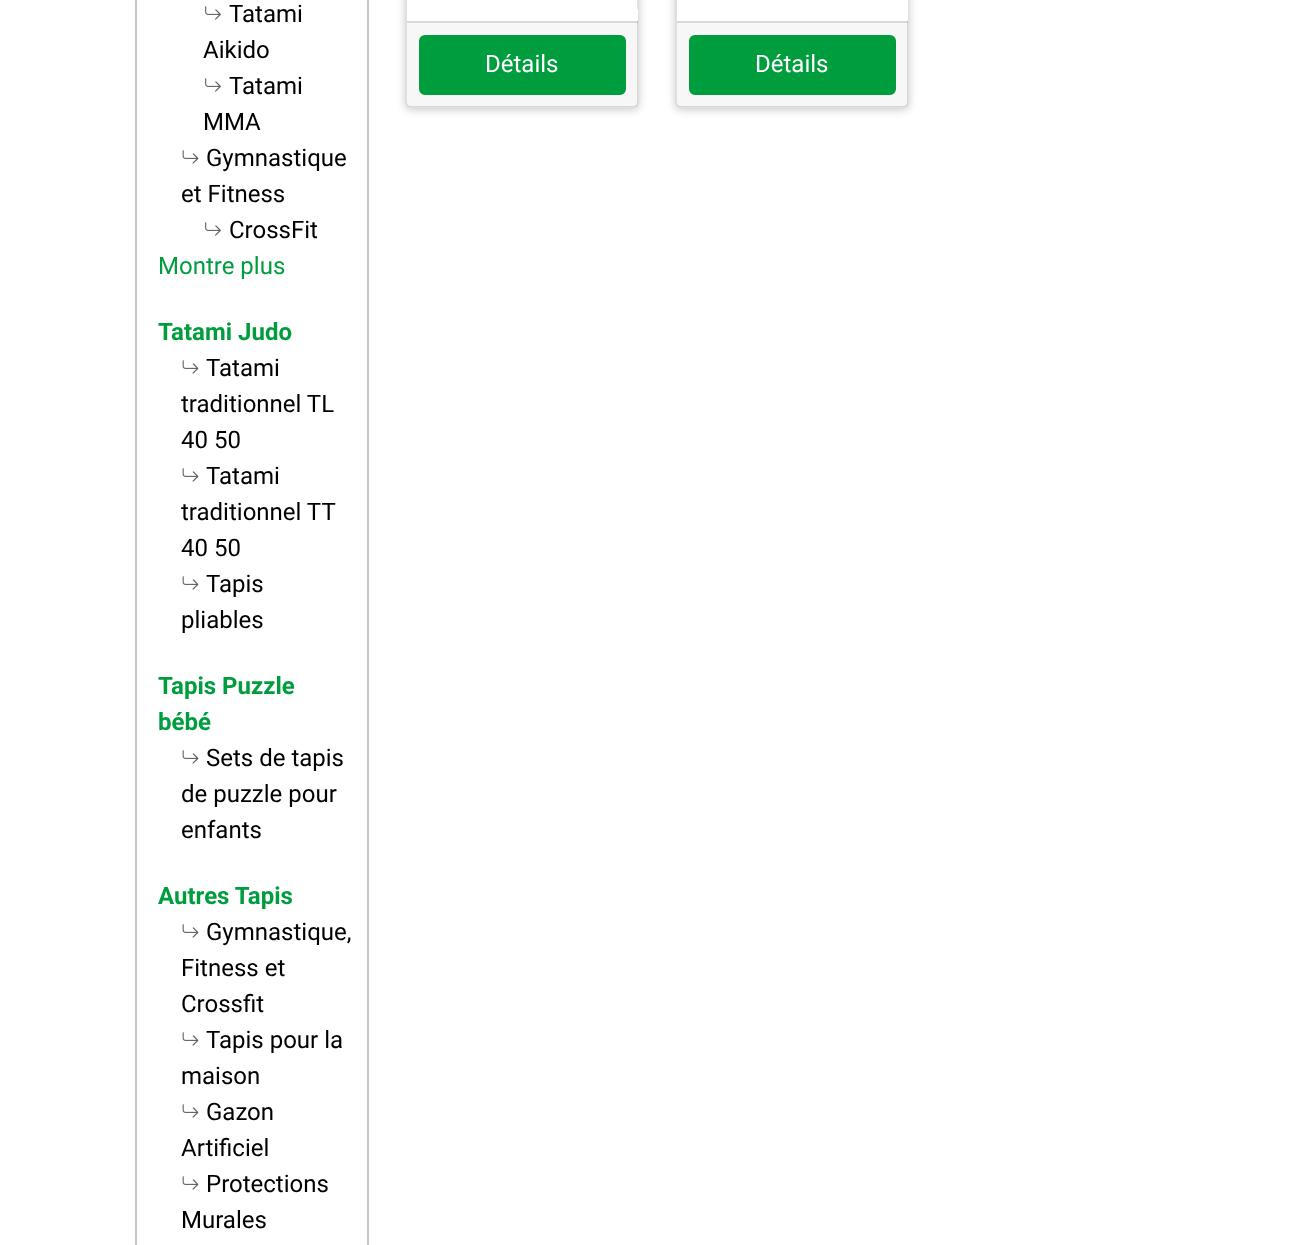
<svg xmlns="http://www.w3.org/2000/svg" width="1312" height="1245">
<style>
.a{font:24px Roboto;fill:#000}
.b{font:24px Roboto;fill:#009d3e}
.c{font:bold 24px Roboto;fill:#009d3e}
.d{font:24px Roboto;fill:#fff}
</style>
<rect width="100%" height="100%" fill="#fff"/>
<path fill="none" stroke="#c7c7c7" stroke-width="2" d="M136 -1h232v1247H136z"/>
<image href="1.png" x="205" y="6" width="16" height="14"/>
<image href="1.png" x="205" y="78" width="16" height="14"/>
<image href="2.png" x="182" y="150" width="17" height="14"/>
<image href="1.png" x="205" y="222" width="16" height="14"/>
<image href="2.png" x="182" y="360" width="17" height="14"/>
<image href="2.png" x="182" y="468" width="17" height="14"/>
<image href="2.png" x="182" y="576" width="17" height="14"/>
<image href="2.png" x="182" y="750" width="17" height="14"/>
<image href="2.png" x="182" y="924" width="17" height="14"/>
<image href="2.png" x="182" y="1032" width="17" height="14"/>
<image href="2.png" x="182" y="1104" width="17" height="14"/>
<image href="2.png" x="182" y="1176" width="17" height="14"/>
<rect fill="#00000033" filter="blur(4px)" x="405" y="-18" width="234" height="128" rx="6"/>
<rect fill="#fff" stroke="#dfdfdf" stroke-width="2" x="406" y="-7" width="232" height="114" rx="5"/>
<path fill="#fff" d="M637 9h1v12H637z"/>
<path fill="#00000008" d="M407 21h231v86H407z"/>
<path fill="#0000001f" d="M407 21h231v2H407z"/>
<rect fill="#009d3e" stroke="#009d3e" stroke-width="3" x="420.5" y="36.5" width="204" height="57" rx="4.5"/>
<rect fill="#00000033" filter="blur(4px)" x="675" y="-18" width="234" height="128" rx="6"/>
<rect fill="#fff" stroke="#dfdfdf" stroke-width="2" x="676" y="-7" width="232" height="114" rx="5"/>
<path fill="#fff" d="M907 0h1v21H907z"/>
<path fill="#00000008" d="M677 21h231v86H677z"/>
<path fill="#0000001f" d="M677 21h231v2H677z"/>
<rect fill="#009d3e" stroke="#009d3e" stroke-width="3" x="690.5" y="36.5" width="204" height="57" rx="4.5"/>
<text class="a" x="229" y="22">Tatami</text>
<text class="a" x="203" y="58">Aikido</text>
<text class="a" x="229" y="94">Tatami</text>
<text class="a" x="203" y="130">MMA</text>
<text class="a" x="206" y="166">Gymnastique</text>
<text class="a" x="181" y="202">et Fitness</text>
<text class="a" x="229" y="238">CrossFit</text>
<text class="b" x="158" y="274">Montre plus</text>
<text class="c" x="158" y="340">Tatami Judo</text>
<text class="a" x="206" y="376">Tatami</text>
<text class="a" x="181" y="412">traditionnel TL</text>
<text class="a" x="181" y="448">40 50</text>
<text class="a" x="206" y="484">Tatami</text>
<text class="a" x="181" y="520">traditionnel TT</text>
<text class="a" x="181" y="556">40 50</text>
<text class="a" x="206" y="592">Tapis</text>
<text class="a" x="181" y="628">pliables</text>
<text class="c" x="158" y="694">Tapis Puzzle</text>
<text class="c" x="158" y="730">bébé</text>
<text class="a" x="206" y="766">Sets de tapis</text>
<text class="a" x="181" y="802">de puzzle pour</text>
<text class="a" x="181" y="838">enfants</text>
<text class="c" x="158" y="904">Autres Tapis</text>
<text class="a" x="206" y="940">Gymnastique,</text>
<text class="a" x="181" y="976">Fitness et</text>
<text class="a" x="181" y="1012">Crossfit</text>
<text class="a" x="206" y="1048">Tapis pour la</text>
<text class="a" x="181" y="1084">maison</text>
<text class="a" x="206" y="1120">Gazon</text>
<text class="a" x="181" y="1156">Artificiel</text>
<text class="a" x="206" y="1192">Protections</text>
<text class="a" x="181" y="1228">Murales</text>
<text class="d" x="485" y="72">Détails</text>
<text class="d" x="755" y="72">Détails</text>
</svg>
